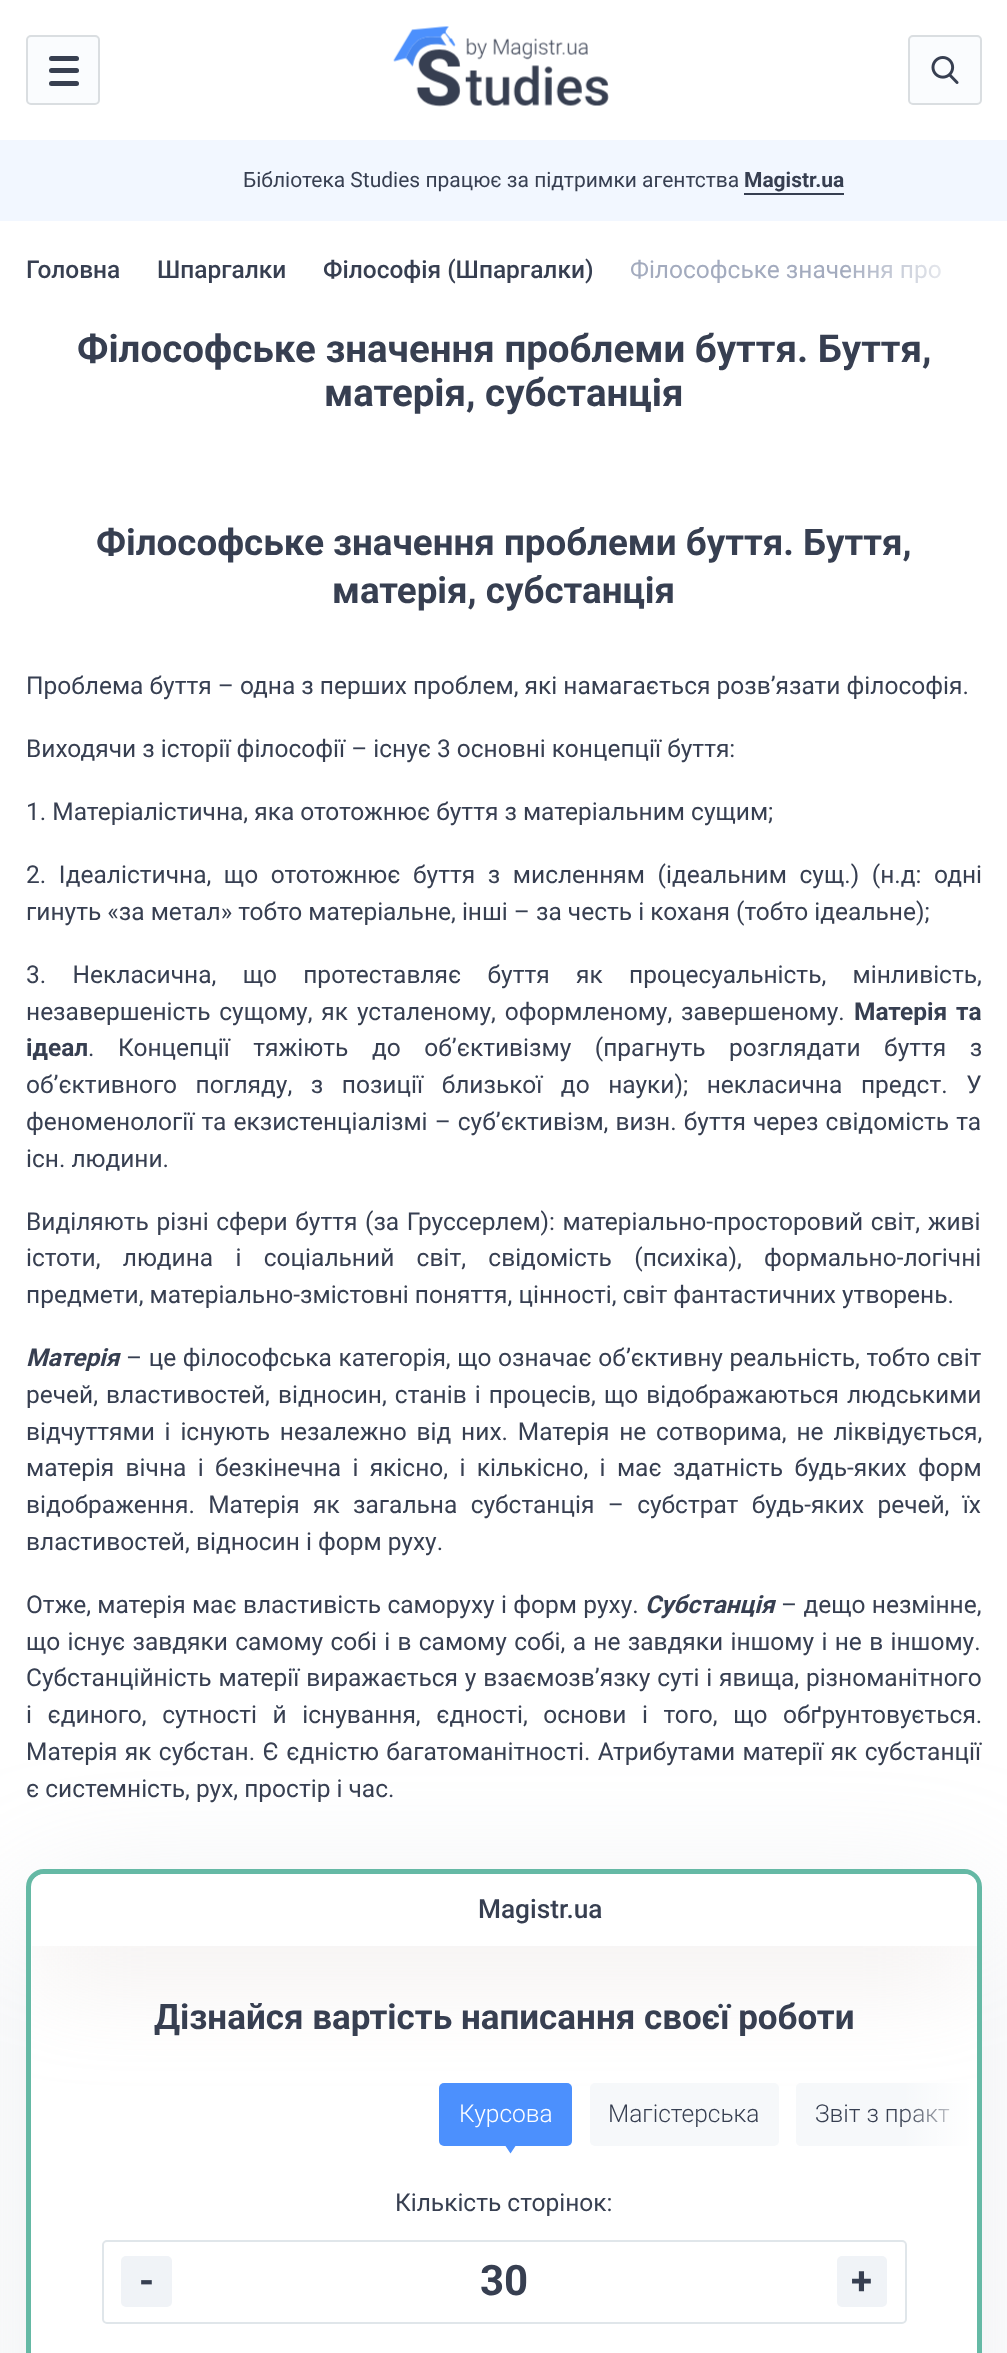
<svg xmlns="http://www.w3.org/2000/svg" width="1007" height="2353">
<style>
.a{font:21px Roboto;fill:#373f51}
.b{font:bold 21px Roboto;fill:#373f51}
.c{font:500 24.5px Roboto;fill:#373f51}
.d{font:24.5px Roboto;fill:#a3abbe}
.e{font:bold 38.5px Roboto;fill:#373f51}
.f{font:bold 36.75px Roboto;fill:#373f51}
.g{font:24.5px Roboto;fill:#373f51}
.h{font:bold 24.5px Roboto;fill:#373f51}
.i{font:italic bold 24.5px Roboto;fill:#373f51}
.j{font:500 26.25px Roboto;fill:#373f51}
.k{font:bold 35px Roboto;fill:#373f51}
.l{font:300 24.5px Roboto;fill:#fff}
.m{font:300 24.5px Roboto;fill:#373f51}
.n{font:bold 42px Roboto;fill:#373f51}
</style>
<defs>
<clipPath id="clip1"><rect x="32" y="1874" width="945" height="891" rx="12"/></clipPath>
<linearGradient id="g1" gradientUnits="userSpaceOnUse" x1="982" y1="270" x2="840" y2="270"><stop offset="0" stop-color="#fff"/><stop offset="1" stop-color="#fff" stop-opacity="0"/></linearGradient>
<linearGradient id="g2" gradientUnits="userSpaceOnUse" x1="977" y1="2123" x2="898" y2="2123"><stop offset="0.07" stop-color="#fff"/><stop offset="0.95" stop-color="#fff" stop-opacity="0"/></linearGradient>
</defs>
<rect width="100%" height="100%" fill="#fff"/>
<rect fill="#fafcfe" stroke="#dadee1" stroke-width="2" x="27" y="36" width="72" height="68" rx="4"/>
<rect fill="#373f50" x="49" y="56" width="30" height="5" rx="2.5"/>
<rect fill="#373f50" x="49" y="68" width="30" height="5" rx="2.5"/>
<rect fill="#373f50" x="49" y="81" width="30" height="5" rx="2.5"/>
<image href="1.png" x="393" y="26" width="216" height="81"/>
<rect fill="#fafcfe" stroke="#dadee1" stroke-width="2" x="909" y="36" width="72" height="68" rx="4"/>
<image href="2.png" x="931" y="56" width="28" height="28"/>
<path fill="#f2f7ff" d="M0 140h1007v81H0z"/>
<path fill="#373f51" d="M744 193h100v2H744z"/>
<rect fill="#bec3cc4d" filter="blur(70px)" x="26" y="1904" width="956" height="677" rx="18"/>
<rect fill="#fff" stroke="#65b9a5" stroke-width="5" x="28.5" y="1871.5" width="951" height="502" rx="15.5"/>
<g clip-path="url(#clip1)">
<path fill="#ccc0be4d" filter="blur(52px)" d="M32 1901h945v71H32z"/>
</g>
<path fill="#fff" d="M44 1874h921c6.5 0 12 5.5 12 12v60h-945v-60c0-6.5 5.5-12 12-12z"/>
<rect fill="#4c90fd" x="439" y="2083" width="133" height="63" rx="5"/>
<path fill="#4c90fd" d="M503.5 2143h14l-7 10.5z"/>
<rect fill="#f6f8fa" x="590" y="2083" width="189" height="63" rx="5"/>
<path fill="#f6f8fa" d="M801 2083h176v63h-176c-3 0-5-2-5-5v-53c0-3 2-5 5-5z"/>
<rect fill="none" stroke="#e0e6ea" stroke-width="2" x="103" y="2241" width="803" height="82" rx="4"/>
<rect fill="#f0f3f7" x="121" y="2256" width="51" height="51" rx="5"/>
<rect fill="#f0f3f7" x="837" y="2256" width="50" height="51" rx="5"/>
<text class="a" x="243" y="187">Бібліотека Studies працює за підтримки агентства</text>
<text class="b" x="744" y="187">Magistr.ua</text>
<text class="c" x="26" y="278">Головна</text>
<text class="c" x="157" y="278">Шпаргалки</text>
<text class="c" x="323" y="278">Філософія (Шпаргалки)</text>
<text class="d" x="630" y="278">Філософське значення про</text>
<path fill="url(#g1)" d="M844 264h97v19H844z"/>
<text class="e" x="77" y="362">Філософське значення проблеми буття. Буття,</text>
<text class="e" x="324" y="406">матерія, субстанція</text>
<text class="f" x="96" y="555">Філософське значення проблеми буття. Буття,</text>
<text class="f" x="332" y="603">матерія, субстанція</text>
<text class="g" x="26" y="694">Проблема буття – одна з перших проблем, які намагається розв’язати філософія.</text>
<text class="g" x="26" y="757">Виходячи з історії філософії – існує 3 основні концепції буття:</text>
<text class="g" x="26" y="820">1. Матеріалістична, яка ототожнює буття з матеріальним сущим;</text>
<text class="g" x="26" y="883" word-spacing="6.5">2. Ідеалістична, що ототожнює буття з мисленням (ідеальним сущ.) (н.д: одні</text>
<text class="g" x="26" y="920">гинуть «за метал» тобто матеріальне, інші – за честь і коханя (тобто ідеальне);</text>
<text class="g" x="26" y="983" word-spacing="20.25">3. Некласична, що протеставляє буття як процесуальність, мінливість,</text>
<text class="g" x="26" y="1020" word-spacing="2.75">незавершеність сущому, як усталеному, оформленому, завершеному.</text>
<text class="h" x="854" y="1020" word-spacing="2.75">Матерія та</text>
<text class="h" x="26" y="1056">ідеал</text>
<text class="g" x="88" y="1056" word-spacing="17.5">. Концепції тяжіють до об’єктивізму (прагнуть розглядати буття з</text>
<text class="g" x="26" y="1093" word-spacing="12.5">об’єктивного погляду, з позиції близької до науки); некласична предст. У</text>
<text class="g" x="26" y="1130" word-spacing="1">феноменології та екзистенціалізмі – суб’єктивізм, визн. буття через свідомість та</text>
<text class="g" x="26" y="1167">існ. людини.</text>
<text class="g" x="26" y="1230" word-spacing="1.5">Виділяють різні сфери буття (за Груссерлем): матеріально-просторовий світ, живі</text>
<text class="g" x="26" y="1266" word-spacing="16.25">істоти, людина і соціальний світ, свідомість (психіка), формально-логічні</text>
<text class="g" x="26" y="1303">предмети, матеріально-змістовні поняття, цінності, світ фантастичних утворень.</text>
<text class="i" x="26" y="1366">Матерія</text>
<text class="g" x="126" y="1366" word-spacing="0.5">– це філософська категорія, що означає об’єктивну реальність, тобто світ</text>
<text class="g" x="26" y="1403" word-spacing="2">речей, властивостей, відносин, станів і процесів, що відображаються людськими</text>
<text class="g" x="26" y="1440" word-spacing="3.75">відчуттями і існують незалежно від них. Матерія не сотворима, не ліквідується,</text>
<text class="g" x="26" y="1476" word-spacing="5.25">матерія вічна і безкінечна і якісно, і кількісно, і має здатність будь-яких форм</text>
<text class="g" x="26" y="1513" word-spacing="7.25">відображення. Матерія як загальна субстанція – субстрат будь-яких речей, їх</text>
<text class="g" x="26" y="1550">властивостей, відносин і форм руху.</text>
<text class="g" x="26" y="1613" word-spacing="0.25">Отже, матерія має властивість саморуху і форм руху.</text>
<text class="i" x="645" y="1613">Субстанція</text>
<text class="g" x="781" y="1613" word-spacing="0.25">– дещо незмінне,</text>
<text class="g" x="26" y="1650" word-spacing="1.25">що існує завдяки самому собі і в самому собі, а не завдяки іншому і не в іншому.</text>
<text class="g" x="26" y="1686" word-spacing="0.75">Субстанційність матерії виражається у взаємозв’язку суті і явища, різноманітного</text>
<text class="g" x="26" y="1723" word-spacing="9.5">і єдиного, сутності й існування, єдності, основи і того, що обґрунтовується.</text>
<text class="g" x="26" y="1760" word-spacing="1.25">Матерія як субстан. Є єдністю багатоманітності. Атрибутами матерії як субстанції</text>
<text class="g" x="26" y="1797">є системність, рух, простір і час.</text>
<text class="j" x="478" y="1918">Magistr.ua</text>
<text class="k" x="154" y="2029">Дізнайся вартість написання своєї роботи</text>
<text class="l" x="459" y="2122">Курсова</text>
<text class="m" x="608" y="2122">Магістерська</text>
<text class="m" x="815" y="2122">Звіт з практ</text>
<path fill="url(#g2)" d="M903 2083h74v63H903z"/>
<text class="g" x="395" y="2211">Кількість сторінок:</text>
<text class="e" x="139" y="2294">-</text>
<text class="n" x="480" y="2295">30</text>
<text class="e" x="851" y="2294">+</text>
</svg>
